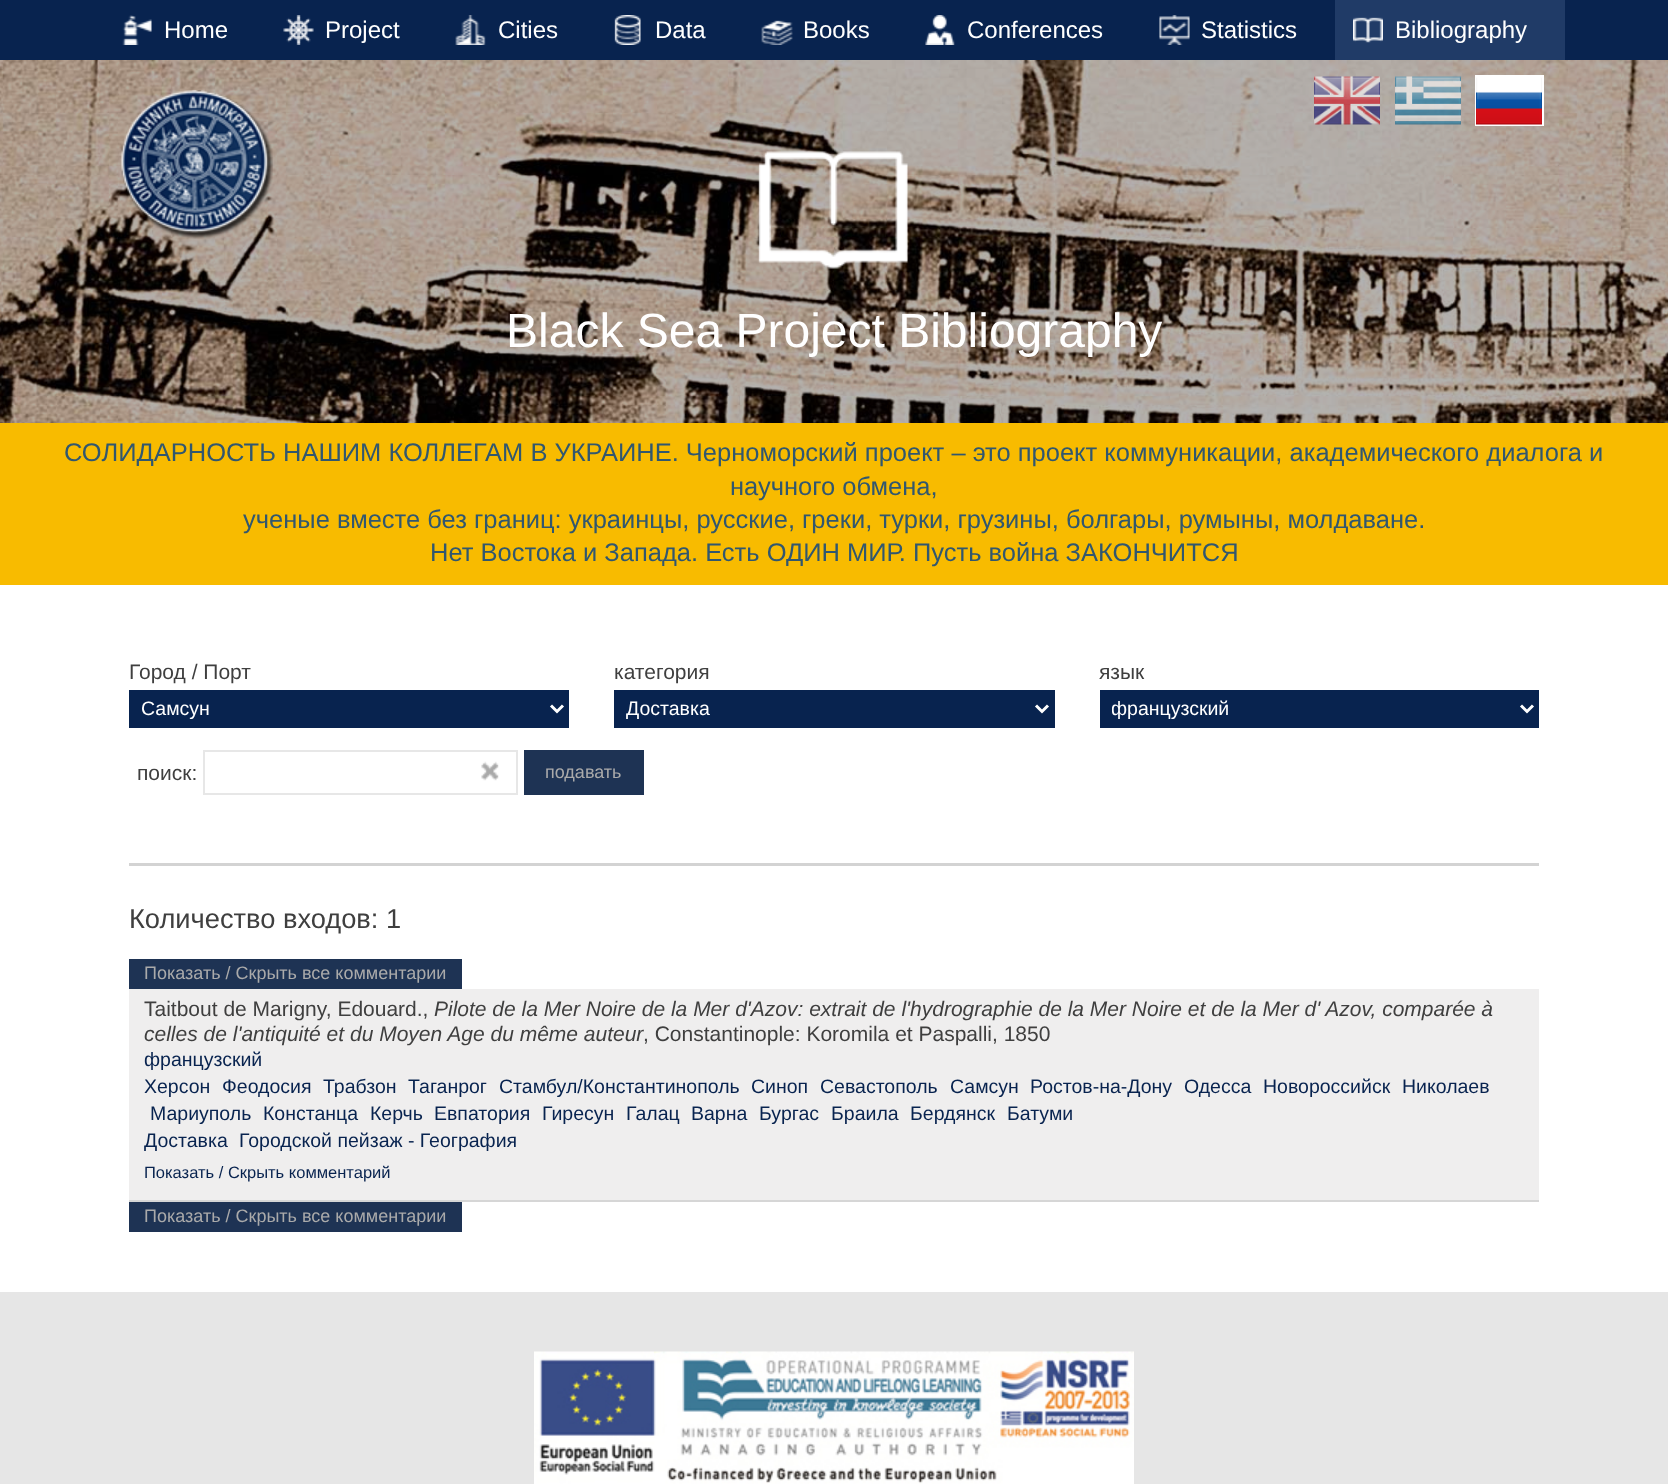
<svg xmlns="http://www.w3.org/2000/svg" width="1668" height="1484">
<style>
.a{font:24px Liberation Sans;fill:#fff}
.b{font:48px Liberation Sans;fill:#fff}
.c{font:25.5px Liberation Sans;fill:#31576f}
.d{font:21px Liberation Sans;fill:#3f3f3f}
.e{font:19.5px Liberation Sans;fill:#fff}
.f{font:18px Liberation Sans;fill:#aaa}
.g{font:27.25px Liberation Sans;fill:#3f3f3f}
.h{font:italic 21px Liberation Sans;fill:#3f3f3f}
.i{font:19.5px Liberation Sans;fill:#08234f}
.j{font:16.5px Liberation Sans;fill:#08234f}
</style>
<defs>
<clipPath id="clip1"><path d="M1112 696h397v26H1112z"/></clipPath>
</defs>
<rect width="100%" height="100%" fill="#e6e6e6"/>
<path fill="#08234f" d="M0 0h1668v60H0z"/>
<image href="1.png" x="122" y="15" width="30" height="30"/>
<image href="2.png" x="283" y="15" width="31" height="30"/>
<image href="3.png" x="455" y="15" width="31" height="30"/>
<image href="4.png" x="614" y="15" width="27" height="30"/>
<image href="5.png" x="761" y="20" width="32" height="25"/>
<image href="6.png" x="925" y="15" width="30" height="30"/>
<image href="7.png" x="1159" y="15" width="31" height="30"/>
<path fill="#203b67" d="M1335 0h230v60H1335z"/>
<image href="8.png" x="1353" y="17" width="30" height="26"/>
<image href="9.png" x="0" y="60" width="1668" height="363"/>
<image href="10.png" x="121" y="90" width="152" height="149"/>
<image href="11.png" x="1314" y="76" width="66" height="49"/>
<image href="12.png" x="1395" y="76" width="66" height="49"/>
<path fill="none" stroke="#fff" stroke-width="2" d="M1476 76h67v49H1476z"/>
<image href="13.png" x="1476" y="77" width="66" height="48"/>
<image href="14.png" x="758" y="151" width="150" height="118"/>
<path fill="#f8bb00" d="M0 423h1668v162H0z"/>
<path fill="#fff" d="M0 585h1668v707H0z"/>
<path fill="#08234f" d="M129 690h440v38H129z"/>
<path fill="none" stroke="#fff" stroke-width="3" d="M551 705.5l6 6l6-6"/>
<path fill="#08234f" d="M614 690h441v38H614z"/>
<path fill="none" stroke="#fff" stroke-width="3" d="M1036 705.5l6 6l6-6"/>
<path fill="#08234f" d="M1100 690h439v38H1100z"/>
<path fill="none" stroke="#fff" stroke-width="3" d="M1521 705.5l6 6l6-6"/>
<path fill="none" stroke="#e7e7e7" stroke-width="2" d="M204 751h313v43H204z"/>
<image href="15.png" x="481" y="761" width="18" height="20"/>
<path fill="#1e3354" d="M524 750h120v45H524z"/>
<path fill="#d3d3d3" d="M129 863h1410v3H129z"/>
<path fill="#1e3354" d="M129 959h333v30H129z"/>
<path fill="#efeeee" d="M129 989h1410v211H129z"/>
<path fill="#d6d6d6" d="M129 1200h1410v2H129z"/>
<path fill="#1e3354" d="M129 1202h333v30H129z"/>
<image href="16.png" x="534" y="1351" width="600" height="133"/>
<text class="a" x="164" y="38">Home</text>
<text class="a" x="325" y="38">Project</text>
<text class="a" x="498" y="38">Cities</text>
<text class="a" x="655" y="38">Data</text>
<text class="a" x="803" y="38">Books</text>
<text class="a" x="967" y="38">Conferences</text>
<text class="a" x="1201" y="38">Statistics</text>
<text class="a" x="1395" y="38">Bibliography</text>
<text class="b" x="506" y="347">Black Sea Project Bibliography</text>
<text class="c" x="64" y="461">СОЛИДАРНОСТЬ НАШИМ КОЛЛЕГАМ В УКРАИНЕ. Черноморский проект – это проект коммуникации, академического диалога и</text>
<text class="c" x="730" y="495">научного обмена,</text>
<text class="c" x="243" y="528">ученые вместе без границ: украинцы, русские, греки, турки, грузины, болгары, румыны, молдаване.</text>
<text class="c" x="430" y="561">Нет Востока и Запада. Есть ОДИН МИР. Пусть война ЗАКОНЧИТСЯ</text>
<text class="d" x="129" y="679">Город / Порт</text>
<text class="e" x="141" y="715">Самсун</text>
<text class="d" x="614" y="679">категория</text>
<text class="e" x="626" y="715">Доставка</text>
<text class="d" x="1099" y="679">язык</text>
<g clip-path="url(#clip1)">
<text class="e" x="1111" y="715">французский</text>
</g>
<text class="d" x="137" y="780">поиск:</text>
<text class="f" x="545" y="778">подавать</text>
<text class="g" x="129" y="928">Количество входов: 1</text>
<text class="f" x="144" y="979">Показать / Скрыть все комментарии</text>
<text class="d" x="144" y="1016">Taitbout de Marigny, Edouard.,</text>
<text class="h" x="434" y="1016">Pilote de la Mer Noire de la Mer d'Azov: extrait de l'hydrographie de la Mer Noire et de la Mer d' Azov, comparée à</text>
<text class="h" x="144" y="1041">celles de l'antiquité et du Moyen Age du même auteur</text>
<text class="d" x="643" y="1041">, Constantinople: Koromila et Paspalli, 1850</text>
<text class="i" x="144" y="1066">французский</text>
<text class="i" x="144" y="1093">Херсон</text>
<text class="i" x="222" y="1093">Феодосия</text>
<text class="i" x="323" y="1093">Трабзон</text>
<text class="i" x="408" y="1093">Таганрог</text>
<text class="i" x="499" y="1093">Стамбул/Константинополь</text>
<text class="i" x="751" y="1093">Синоп</text>
<text class="i" x="820" y="1093">Севастополь</text>
<text class="i" x="950" y="1093">Самсун</text>
<text class="i" x="1030" y="1093">Ростов-на-Дону</text>
<text class="i" x="1184" y="1093">Одесса</text>
<text class="i" x="1263" y="1093">Новороссийск</text>
<text class="i" x="1402" y="1093">Николаев</text>
<text class="i" x="150" y="1120">Мариуполь</text>
<text class="i" x="263" y="1120">Констанца</text>
<text class="i" x="370" y="1120">Керчь</text>
<text class="i" x="434" y="1120">Евпатория</text>
<text class="i" x="542" y="1120">Гиресун</text>
<text class="i" x="626" y="1120">Галац</text>
<text class="i" x="691" y="1120">Варна</text>
<text class="i" x="759" y="1120">Бургас</text>
<text class="i" x="831" y="1120">Браила</text>
<text class="i" x="910" y="1120">Бердянск</text>
<text class="i" x="1007" y="1120">Батуми</text>
<text class="i" x="144" y="1147">Доставка</text>
<text class="i" x="239" y="1147">Городской пейзаж - География</text>
<text class="j" x="144" y="1178">Показать / Скрыть комментарий</text>
<text class="f" x="144" y="1222">Показать / Скрыть все комментарии</text>
</svg>
